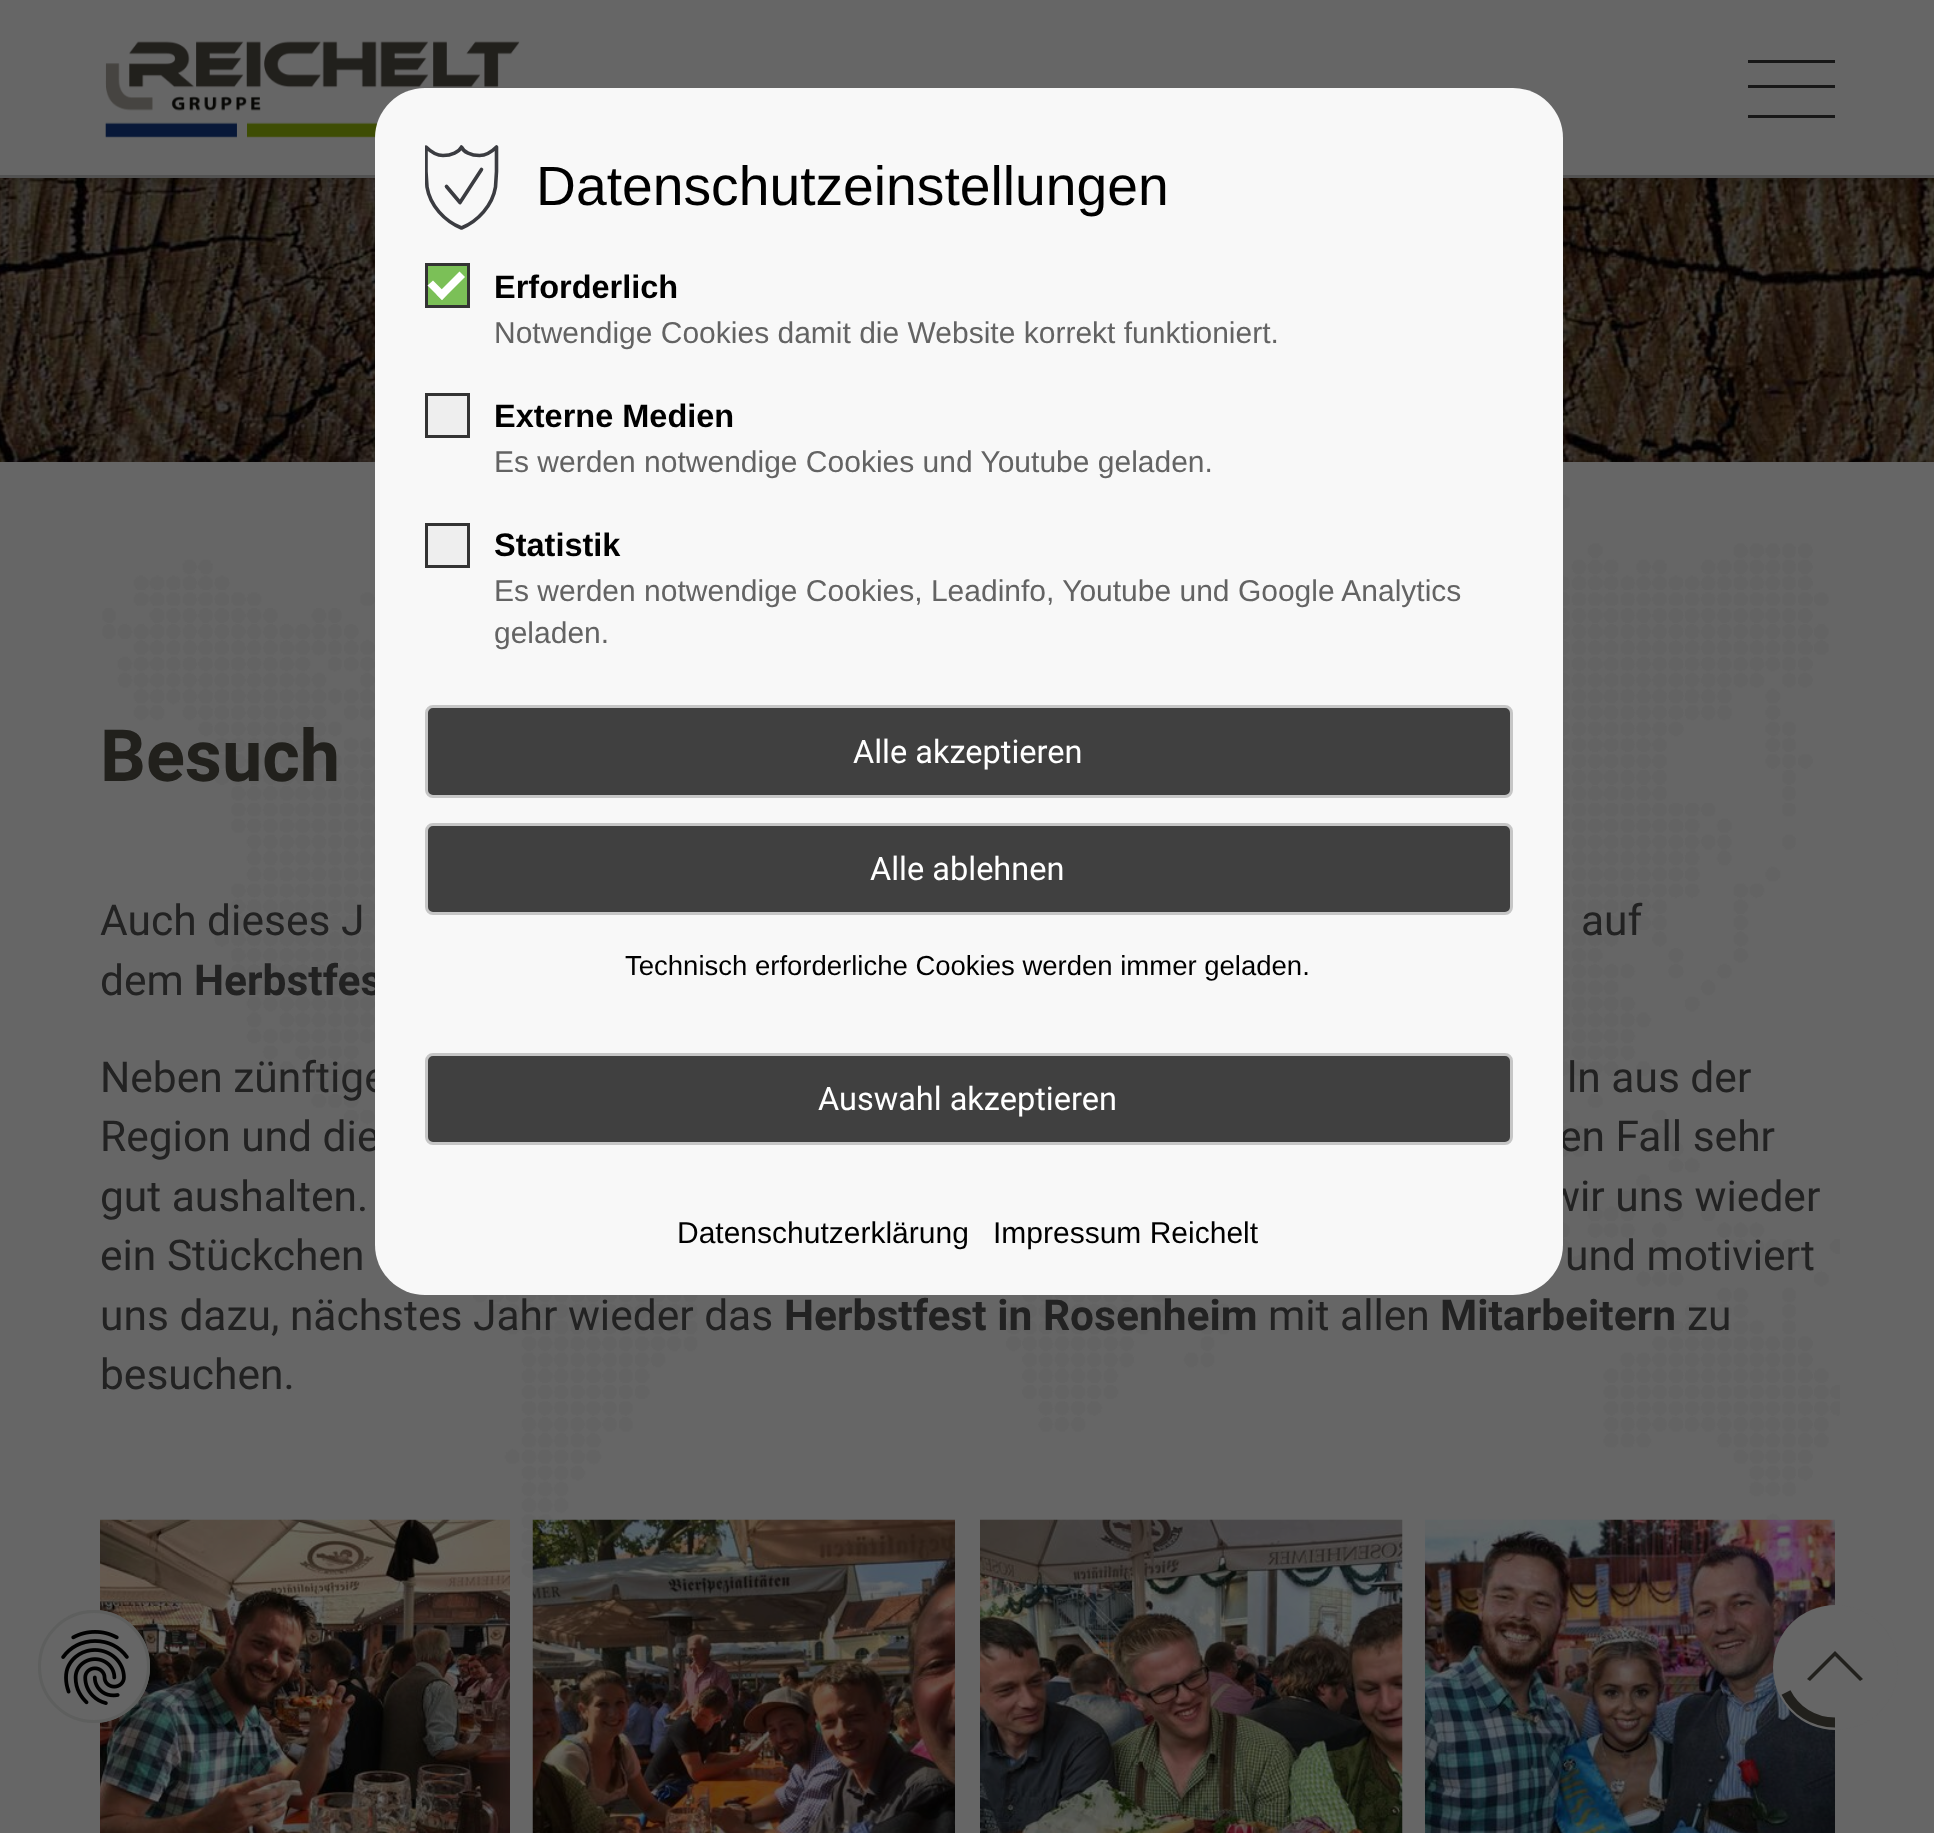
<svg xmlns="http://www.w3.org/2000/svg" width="1934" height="1833">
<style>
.a{font:bold 72px Roboto;fill:#21201c}
.b{font:42.5px Roboto;fill:#222}
.c{font:bold 42.5px Roboto;fill:#222}
.d{font:32.5px Roboto;fill:#fff}
.e{font:30px Liberation Sans;fill:#636363}
.f{font:bold 32.5px Liberation Sans;fill:#000}
.g{font:30px Liberation Sans;fill:#000}
.h{font:27.5px Liberation Sans;fill:#000}
.i{font:55.25px Liberation Sans;fill:#000}
</style>
<defs>
<clipPath id="clip1"><path d="M425 145h75v85H425z"/></clipPath>
</defs>
<rect width="100%" height="100%" fill="#666"/>
<image href="3.png" x="0" y="178" width="1934" height="284"/>
<path fill="#0000001a" filter="blur(2.5px)" d="M-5 -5h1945v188H-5z"/>
<path fill="#666" d="M0 0h1934v175H0z"/>
<path fill="#525252" d="M0 175h1934v3H0z"/>
<image href="1.png" x="105" y="41" width="415" height="97"/>
<path fill="#171717" d="M1748 85h87v3H1748z"/>
<path fill="#171717" d="M1748 60h87v3H1748z"/>
<path fill="#171717" d="M1748 115h87v3H1748z"/>
<image href="4.png" x="102" y="494" width="1738" height="1084"/>
<image href="5.png" x="100" y="1519" width="410" height="314"/>
<rect fill="#666" x="38" y="1610" width="112" height="113" rx="56"/>
<image href="2.png" x="61" y="1630" width="68" height="75"/>
<rect fill="none" stroke="#5e5f5e" stroke-width="3" x="39.5" y="1611.5" width="109" height="110" rx="54.5"/>
<image href="6.png" x="532" y="1519" width="423" height="314"/>
<image href="7.png" x="980" y="1519" width="423" height="314"/>
<image href="8.png" x="1425" y="1519" width="410" height="314"/>
<circle fill="#666" cx="1835.5" cy="1667.5" r="62.5"/>
<path fill="#21201c" d="M1860 1681l-25-25l-25 25l-3-2l28-28l28 28z"/>
<path fill="none" stroke="#21201c" stroke-width="10" d="M1835 1722.5c-21.5 0-40-12-49-30"/>
<text class="a" x="100" y="781">Besuch</text>
<text class="b" x="100" y="935">Auch dieses J</text>
<text class="b" x="1581" y="935">auf</text>
<text class="b" x="100" y="995">dem</text>
<text class="c" x="194" y="995">Herbstfes</text>
<text class="b" x="100" y="1092">Neben zünftige</text>
<text class="b" x="1567" y="1092">ln aus der</text>
<text class="b" x="100" y="1151">Region und die</text>
<text class="b" x="1559" y="1151">en Fall sehr</text>
<text class="b" x="100" y="1211">gut aushalten.</text>
<text class="b" x="1548" y="1211">wir uns wieder</text>
<rect fill="#f8f8f8" x="375" y="88" width="1188" height="1207" rx="50"/>
<rect fill="#404040" stroke="#c6c6c6" stroke-width="3" x="426.5" y="1054.5" width="1085" height="89" rx="6.5"/>
<text class="d" x="818" y="1110">Auswahl akzeptieren</text>
<rect fill="#404040" stroke="#c6c6c6" stroke-width="3" x="426.5" y="824.5" width="1085" height="89" rx="6.5"/>
<text class="d" x="870" y="880">Alle ablehnen</text>
<rect fill="#404040" stroke="#c6c6c6" stroke-width="3" x="426.5" y="706.5" width="1085" height="90" rx="6.5"/>
<text class="d" x="853" y="763">Alle akzeptieren</text>
<path fill="#eee" stroke="#333" stroke-width="3" d="M426.5 524.5h42v42H426.5z"/>
<text class="e" x="494" y="643">geladen.</text>
<text class="e" x="494" y="601">Es werden notwendige Cookies, Leadinfo, Youtube und Google Analytics</text>
<text class="f" x="494" y="556">Statistik</text>
<path fill="#eee" stroke="#333" stroke-width="3" d="M426.5 394.5h42v42H426.5z"/>
<text class="e" x="494" y="472">Es werden notwendige Cookies und Youtube geladen.</text>
<text class="f" x="494" y="427">Externe Medien</text>
<path fill="#7bc057" stroke="#333" stroke-width="3" d="M426.5 264.5h42v42H426.5z"/>
<path fill="#fff" d="M459.5 271.5l5.5 5.5l-23 23l-5.5-5.5z"/>
<path fill="#fff" d="M433 280.5l14 14l-5 5.5l-14.5-14.5z"/>
<text class="e" x="494" y="343">Notwendige Cookies damit die Website korrekt funktioniert.</text>
<text class="f" x="494" y="298">Erforderlich</text>
<text class="g" x="993" y="1243">Impressum Reichelt</text>
<text class="g" x="677" y="1243">Datenschutzerklärung</text>
<text class="h" x="625" y="975">Technisch erforderliche Cookies werden immer geladen.</text>
<text class="i" x="536" y="205">Datenschutzeinstellungen</text>
<g clip-path="url(#clip1)">
<path fill="none" stroke="#3b3c41" stroke-width="3.6" stroke-linecap="round" stroke-linejoin="round" d="M461.5 228c-17-7-31.5-22.5-34.5-41l-1-15.5v-24.5c3.5 3.5 9.5 8.5 17 8.5c8.5 0 16-3.5 18.5-8.5c2 5 9.5 8.5 18 8.5c7.5 0 13.5-5 17-8.5v24.5l-1 15.5c-3 18.5-17.5 34-34 41z"/>
</g>
<path fill="none" stroke="#3b3c41" stroke-width="3.6" stroke-linecap="round" stroke-linejoin="round" d="M446.5 186.5l13.5 16l21.5-33"/>
<text class="b" x="100" y="1270">ein Stückchen</text>
<text class="b" x="1565" y="1270">und motiviert</text>
<text class="b" x="100" y="1330">uns dazu, nächstes Jahr wieder das</text>
<text class="c" x="784" y="1330">Herbstfest in Rosenheim</text>
<text class="b" x="1268" y="1330">mit allen</text>
<text class="c" x="1440" y="1330">Mitarbeitern</text>
<text class="b" x="1687" y="1330">zu</text>
<text class="b" x="100" y="1389">besuchen.</text>
</svg>
